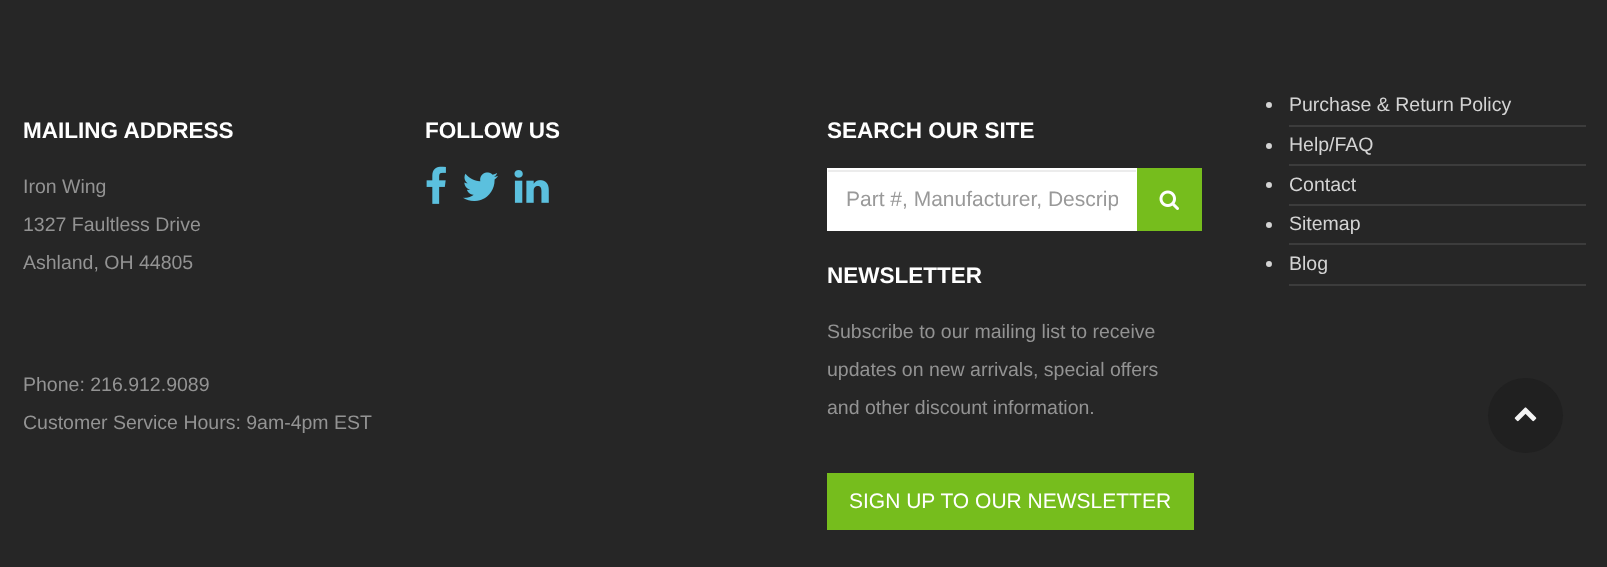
<svg xmlns="http://www.w3.org/2000/svg" width="1607" height="567">
<style>
.a{font:bold 22.5px Liberation Sans;fill:#fff}
.b{font:19.5px Liberation Sans;fill:#939393}
.c{font:21px Liberation Sans;fill:#999}
.d{font:21px Liberation Sans;fill:#fff}
.e{font:19.5px Liberation Sans;fill:#d4d4d4}
</style>
<defs>
<clipPath id="clip1"><path d="M846 188h272v24H846z"/></clipPath>
</defs>
<rect width="100%" height="100%" fill="#262626"/>
<image href="1.png" x="426" y="166" width="20" height="38"/>
<image href="2.png" x="463" y="172" width="35" height="29"/>
<image href="3.png" x="514" y="170" width="35" height="33"/>
<path fill="#fff" d="M827 168h310v63H827z"/>
<path fill="#ececec" d="M828 170h308v2H828z"/>
<path fill="#76bd1d" d="M1137 168h65v63H1137z"/>
<image href="4.png" x="1159" y="190" width="20" height="20"/>
<path fill="#76bd1d" d="M827 473h367v57H827z"/>
<path fill="#3c3c3c" d="M1289 125h297v2H1289z"/>
<circle fill="#d4d4d4" cx="1269" cy="105" r="3"/>
<path fill="#3c3c3c" d="M1289 164h297v2H1289z"/>
<circle fill="#d4d4d4" cx="1269" cy="146" r="3"/>
<path fill="#3c3c3c" d="M1289 204h297v2H1289z"/>
<circle fill="#d4d4d4" cx="1269" cy="185" r="3"/>
<path fill="#3c3c3c" d="M1289 243h297v2H1289z"/>
<circle fill="#d4d4d4" cx="1269" cy="225" r="3"/>
<path fill="#3c3c3c" d="M1289 284h297v2H1289z"/>
<circle fill="#d4d4d4" cx="1269" cy="264" r="3"/>
<circle fill="#202020" cx="1525.5" cy="415.5" r="37.5"/>
<image href="5.png" x="1514" y="407" width="23" height="15"/>
<text class="a" x="23" y="138">MAILING ADDRESS</text>
<text class="b" x="23" y="193">Iron Wing</text>
<text class="b" x="23" y="231">1327 Faultless Drive</text>
<text class="b" x="23" y="269">Ashland, OH 44805</text>
<text class="b" x="23" y="391">Phone: 216.912.9089</text>
<text class="b" x="23" y="429">Customer Service Hours: 9am-4pm EST</text>
<text class="a" x="425" y="138">FOLLOW US</text>
<text class="a" x="827" y="138">SEARCH OUR SITE</text>
<g clip-path="url(#clip1)">
<text class="c" x="846" y="206">Part #, Manufacturer, Descrip</text>
</g>
<text class="a" x="827" y="283">NEWSLETTER</text>
<text class="b" x="827" y="338">Subscribe to our mailing list to receive</text>
<text class="b" x="827" y="376">updates on new arrivals, special offers</text>
<text class="b" x="827" y="414">and other discount information.</text>
<text class="d" x="849" y="508">SIGN UP TO OUR NEWSLETTER</text>
<text class="e" x="1289" y="111">Purchase &amp; Return Policy</text>
<text class="e" x="1289" y="151">Help/FAQ</text>
<text class="e" x="1289" y="191">Contact</text>
<text class="e" x="1289" y="230">Sitemap</text>
<text class="e" x="1289" y="270">Blog</text>
</svg>
